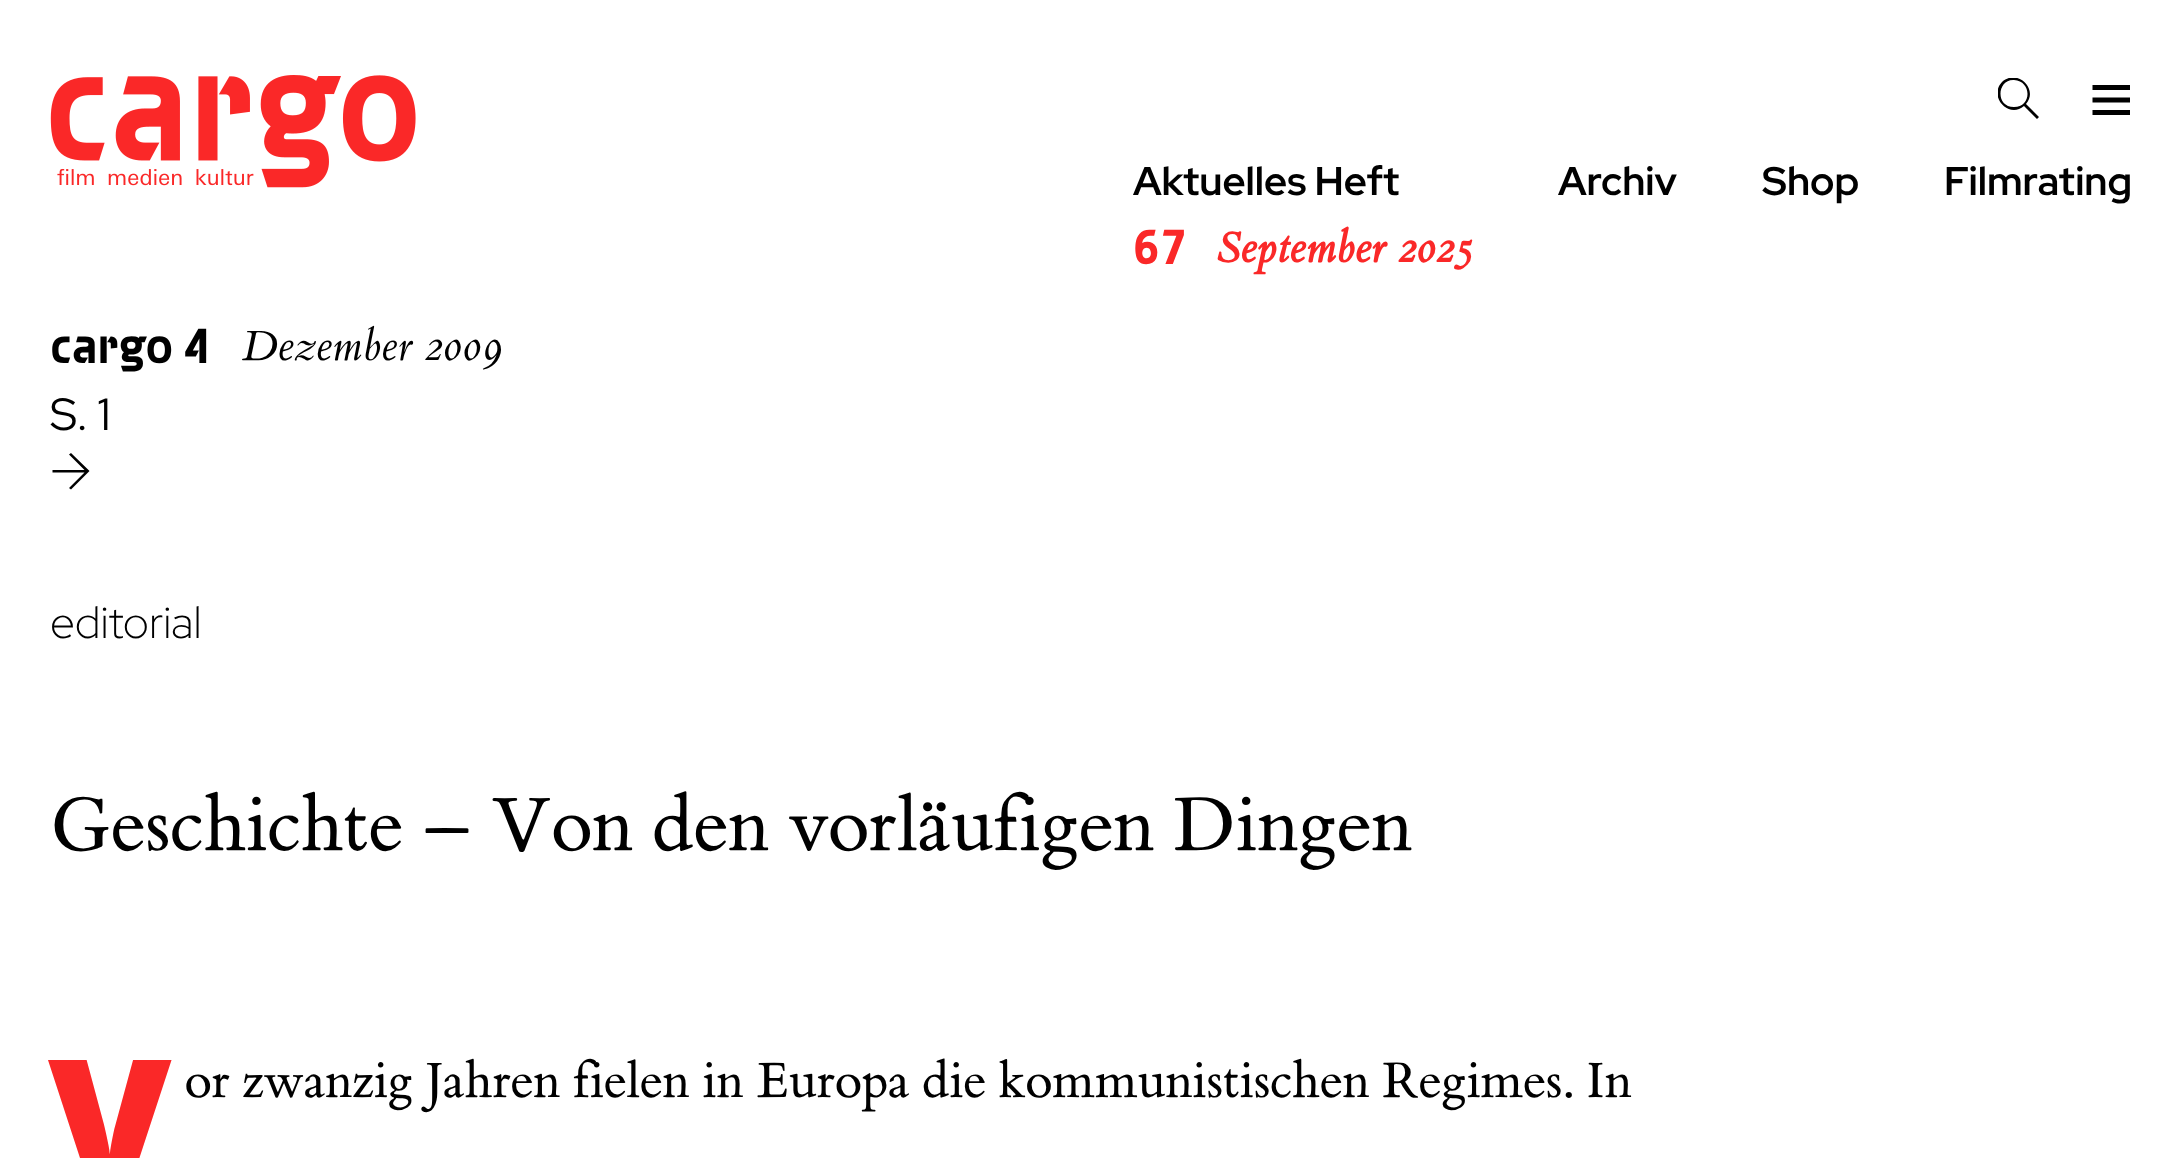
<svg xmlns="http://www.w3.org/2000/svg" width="2182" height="1158">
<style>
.a{font:bold 40px Red Hat Display;fill:#000}
.b{font:bold 52.5px 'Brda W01';fill:#fa2828}
.c{font:italic bold 45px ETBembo;fill:#fa2828}
.d{font:bold 52.5px 'Brda W01';fill:#000}
.e{font:italic 45px ETBembo;fill:#000}
.f{font:45px Red Hat Display;fill:#000}
.g{font:300 45px Red Hat Display;fill:#000}
.h{font:80px ETBembo;fill:#000}
.i{font:900 178px Noto Sans;fill:#fa2828}
.j{font:52.5px ETBembo;fill:#000}
</style>
<defs>
<clipPath id="clip1"><path d="M1998 78h42v42H1998z"/></clipPath>
</defs>
<rect width="100%" height="100%" fill="#fff"/>
<image href="1.png" x="50" y="75" width="366" height="113"/>
<g clip-path="url(#clip1)">
<path fill="#000" d="M2039 117l-13-13c13-15-9-36-24-22c-14 15 7 37 22 24l13 13zm-25-10c-19 0-17-28 0-27c18 1 18 27 0 27z"/>
</g>
<path fill="#000" d="M2130 85v5h-37.5v-5zm-37.5 17.5h37.5v-5h-37.5zm0 12.5h37.5v-5h-37.5z"/>
<path fill="#000" d="M89.5 471l-18.5 18.5l-2-1.5l15.5-15.5h-32v-2.5h32l-15.5-15.5l2-1.5z"/>
<text class="a" x="1133" y="195">Aktuelles Heft</text>
<text class="b" x="1133" y="264">67</text>
<text class="c" x="1217" y="262">September 2025</text>
<text class="a" x="1558" y="195">Archiv</text>
<text class="a" x="1762" y="195">Shop</text>
<text class="a" x="1944" y="195">Filmrating</text>
<text class="d" x="50" y="363">cargo</text>
<text class="d" x="183" y="363">4</text>
<text class="e" x="242" y="360">Dezember 2009</text>
<text class="f" x="50" y="430">S. 1</text>
<text class="g" x="50" y="638">editorial</text>
<text class="h" x="50" y="850">Geschichte – Von den vorläufigen Dingen</text>
<text class="i" x="48" y="1187">V</text>
<text class="j" x="185" y="1097">or zwanzig Jahren fielen in Europa die kommunistischen Regimes. In</text>
</svg>
